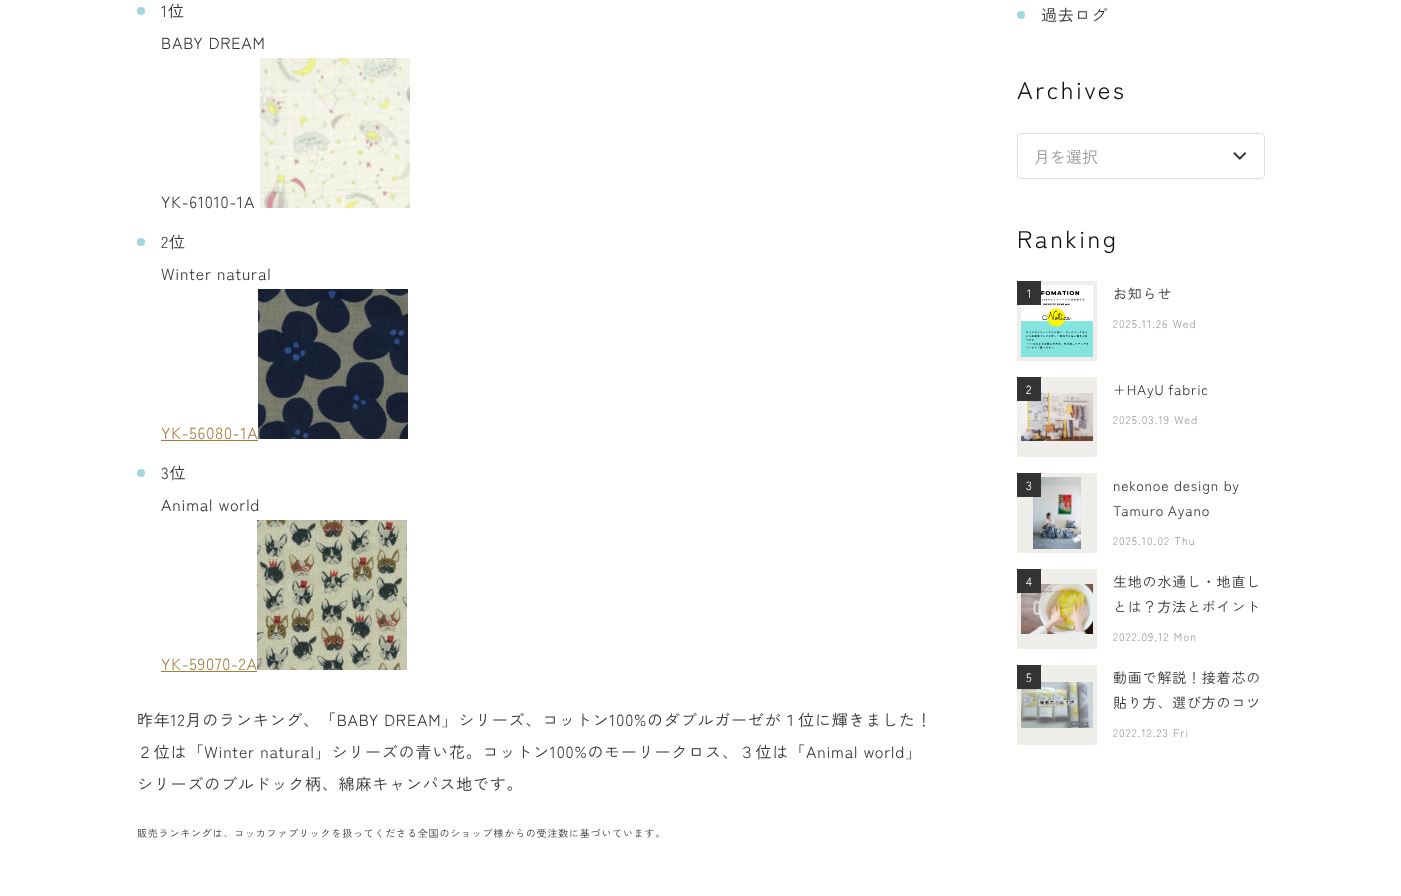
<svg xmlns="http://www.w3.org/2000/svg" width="1401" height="896">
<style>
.a{font:16px Zen Kaku Gothic New;letter-spacing:0.8px;fill:#333}
.b{font:16px Zen Kaku Gothic New;letter-spacing:0.8px;fill:#a27e39}
.c{font:10px Zen Kaku Gothic New;letter-spacing:0.8px;fill:#333}
.d{font:24px Zen Kaku Gothic New;letter-spacing:2.5px;fill:#111}
.e{font:16px Zen Kaku Gothic New;fill:#999}
.f{font:12px Zen Kaku Gothic New;letter-spacing:0.8px;fill:#fff}
.g{font:14px Zen Kaku Gothic New;letter-spacing:0.8px;fill:#333}
.h{font:11px Zen Kaku Gothic New;letter-spacing:1.1px;fill:#999}
</style>
<rect width="100%" height="100%" fill="#fff"/>
<circle fill="#a1d6dc" cx="141" cy="11" r="4"/>
<image href="1.png" x="260" y="58" width="150" height="150"/>
<circle fill="#a1d6dc" cx="141" cy="242" r="4"/>
<path fill="#a27e39" d="M161 440h97v1H161z"/>
<image href="2.png" x="258" y="289" width="150" height="150"/>
<circle fill="#a1d6dc" cx="141" cy="473" r="4"/>
<path fill="#a27e39" d="M161 671h96v1H161z"/>
<image href="3.png" x="257" y="520" width="150" height="150"/>
<circle fill="#a1d6dc" cx="1021" cy="15" r="4"/>
<image href="4.png" x="1233" y="152" width="14" height="8"/>
<rect fill="none" stroke="#ddd" x="1017.5" y="133.5" width="247" height="45" rx="3.5"/>
<path fill="#efeeeb" d="M1017 281h80v80H1017z"/>
<image href="5.png" x="1021" y="285" width="72" height="72"/>
<path fill="#333" d="M1017 281h24v24H1017z"/>
<path fill="#efeeeb" d="M1017 377h80v80H1017z"/>
<image href="6.png" x="1021" y="393" width="72" height="48"/>
<path fill="#333" d="M1017 377h24v24H1017z"/>
<path fill="#efeeeb" d="M1017 473h80v80H1017z"/>
<image href="7.png" x="1033" y="477" width="48" height="72"/>
<path fill="#333" d="M1017 473h24v24H1017z"/>
<path fill="#efeeeb" d="M1017 569h80v80H1017z"/>
<image href="8.png" x="1021" y="584" width="72" height="50"/>
<path fill="#333" d="M1017 569h24v24H1017z"/>
<path fill="#efeeeb" d="M1017 665h80v80H1017z"/>
<image href="9.png" x="1021" y="682" width="72" height="46"/>
<path fill="#333" d="M1017 665h24v24H1017z"/>
<text class="a" x="161" y="17">1位</text>
<text class="a" x="161" y="49">BABY DREAM</text>
<text class="a" x="161" y="208">YK-61010-1A</text>
<text class="a" x="161" y="248">2位</text>
<text class="a" x="161" y="280">Winter natural</text>
<text class="b" x="161" y="439">YK-56080-1A</text>
<text class="a" x="161" y="479">3位</text>
<text class="a" x="161" y="511">Animal world</text>
<text class="b" x="161" y="670">YK-59070-2A</text>
<text class="a" x="137" y="726">昨年12月のランキング、「BABY DREAM」シリーズ、コットン100%のダブルガーゼが１位に輝きました！</text>
<text class="a" x="137" y="758">２位は「Winter natural」シリーズの青い花。コットン100%のモーリークロス、３位は「Animal world」</text>
<text class="a" x="137" y="790">シリーズのブルドック柄、綿麻キャンパス地です。</text>
<text class="c" x="137" y="837">販売ランキングは、コッカファブリックを扱ってくださる全国のショップ様からの受注数に基づいています。</text>
<text class="a" x="1041" y="21">過去ログ</text>
<text class="d" x="1017" y="99">Archives</text>
<text class="e" x="1034" y="163">月を選択</text>
<text class="d" x="1017" y="248">Ranking</text>
<text class="f" x="1027" y="298">1</text>
<text class="g" x="1113" y="299">お知らせ</text>
<text class="h" x="1113" y="328">2025.11.26 Wed</text>
<text class="f" x="1026" y="394">2</text>
<text class="g" x="1113" y="395" word-spacing="-1">+HAyU fabric</text>
<text class="h" x="1113" y="424">2025.03.19 Wed</text>
<text class="f" x="1026" y="490">3</text>
<text class="g" x="1113" y="491">nekonoe design by</text>
<text class="g" x="1113" y="516" word-spacing="-1">Tamuro Ayano</text>
<text class="h" x="1113" y="545">2025.10.02 Thu</text>
<text class="f" x="1026" y="586">4</text>
<text class="g" x="1113" y="587">生地の水通し・地直し</text>
<text class="g" x="1113" y="612">とは？方法とポイント</text>
<text class="h" x="1113" y="641">2022.09.12 Mon</text>
<text class="f" x="1026" y="682">5</text>
<text class="g" x="1113" y="683">動画で解説！接着芯の</text>
<text class="g" x="1113" y="708">貼り方、選び方のコツ</text>
<text class="h" x="1113" y="737">2022.12.23 Fri</text>
</svg>
